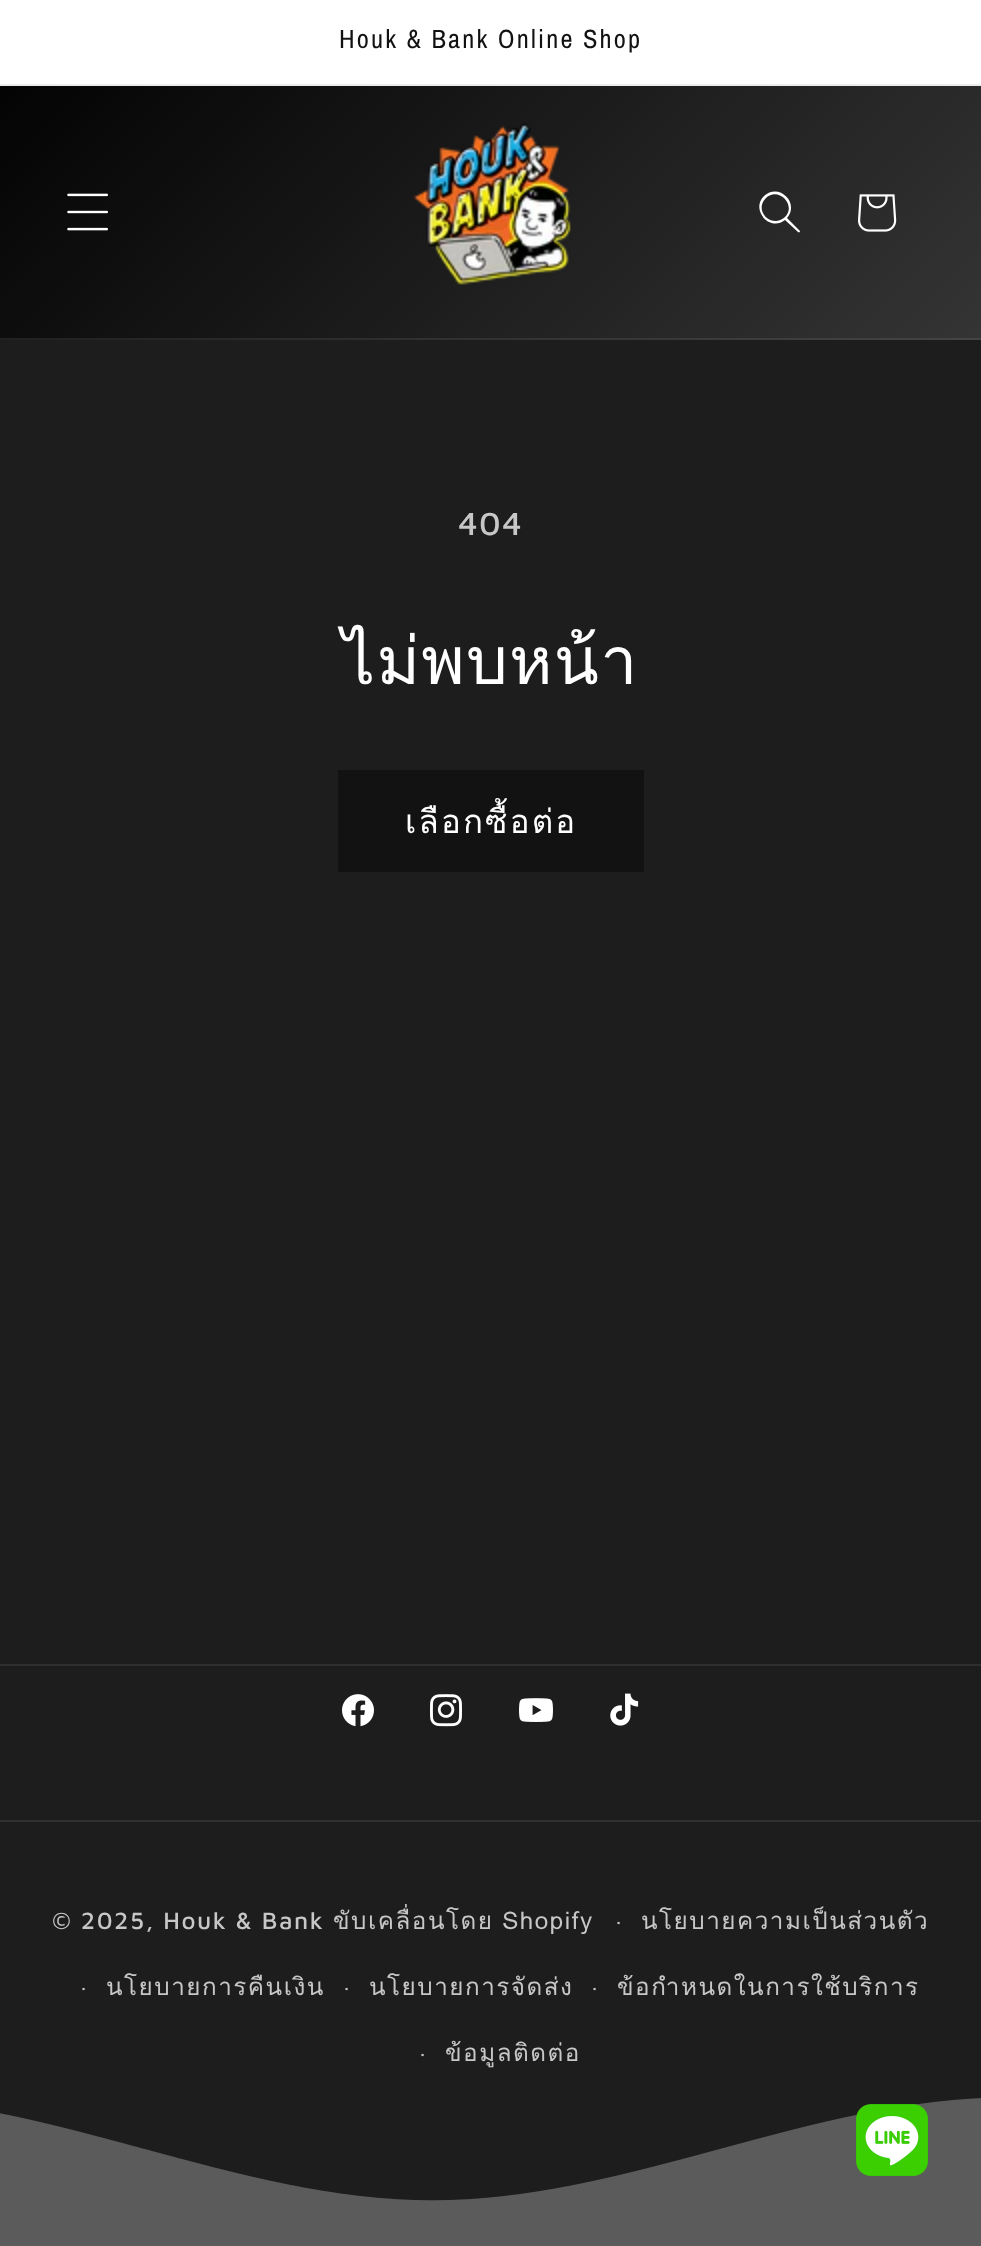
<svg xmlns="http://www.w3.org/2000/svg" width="981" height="2246">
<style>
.a{font:26.4px Archivo Narrow;letter-spacing:2.2px;fill:#121212}
.b{font:500 33px Maven Pro;letter-spacing:1.25px;fill:#c7c7c7}
.c{font:66px Loma;letter-spacing:1.25px;fill:#fff}
.d{font:33px Loma;letter-spacing:2.2px;fill:#fff}
.e{font:24.25px Loma;letter-spacing:1.5px;fill:#c7c7c7}
.f{font:500 22px Maven Pro;letter-spacing:1.5px;fill:#c7c7c7}
.g{font:500 24.25px Maven Pro;letter-spacing:1.5px;fill:#c7c7c7}
</style>
<defs>
<linearGradient id="g1" gradientUnits="userSpaceOnUse" x1="-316" y1="316" x2="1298" y2="1930"><stop offset="0" stop-color="#000"/><stop offset="1" stop-color="#808080"/></linearGradient>
<linearGradient id="g2" gradientUnits="userSpaceOnUse" x1="-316" y1="316" x2="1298" y2="1930"><stop offset="0" stop-color="#141414"/><stop offset="1" stop-color="#8a8a8a"/></linearGradient>
</defs>
<rect width="100%" height="100%" fill="#1d1d1d"/>
<path fill="#fff" d="M0 0h981v84H0z"/>
<path fill="#ececec" d="M0 84h981v2H0z"/>
<path fill="url(#g1)" d="M0 86h981v252H0z"/>
<path fill="url(#g2)" d="M0 338h981v2H0z"/>
<image href="1.png" x="67" y="193" width="41" height="38"/>
<image href="2.png" x="413" y="123" width="158" height="162"/>
<path fill="#fff" fill-rule="evenodd" d="M785 217c-13 12-32-6-19-19c12-12 31 7 19 19m0 3c-15 12-35-10-21-24c15-14 36 7 23 22l13 13c0 1-1 2-2 1z"/>
<image href="3.png" x="858" y="194" width="39" height="38"/>
<path fill="#121212" d="M338 770h306v102H338z"/>
<path fill="#2f2f2f" d="M0 1664h981v2H0z"/>
<image href="4.png" x="342" y="1694" width="32" height="33"/>
<image href="5.png" x="430" y="1694" width="32" height="33"/>
<image href="6.png" x="519" y="1698" width="34" height="24"/>
<image href="7.png" x="610" y="1693" width="29" height="33"/>
<path fill="#2f2f2f" d="M0 1820h981v2H0z"/>
<image href="8.png" x="0" y="2098" width="981" height="148"/>
<image href="9.png" x="856" y="2104" width="72" height="72"/>
<text class="a" x="339" y="48">Houk &amp; Bank Online Shop</text>
<text class="b" x="458" y="535">404</text>
<text class="c" x="342" y="684">ไม่พบหน้า</text>
<text class="d" x="405" y="833">เลือกซื้อต่อ</text>
<text class="e" x="333" y="1929" word-spacing="-1">ขับเคลื่อนโดย Shopify</text>
<text class="f" x="615" y="1929">·</text>
<text class="e" x="641" y="1929">นโยบายความเป็นส่วนตัว</text>
<text class="f" x="80" y="1995">·</text>
<text class="e" x="106" y="1995">นโยบายการคืนเงิน</text>
<text class="f" x="343" y="1995">·</text>
<text class="e" x="369" y="1995">นโยบายการจัดส่ง</text>
<text class="f" x="591" y="1995">·</text>
<text class="e" x="617" y="1995">ข้อกำหนดในการใช้บริการ</text>
<text class="f" x="419" y="2061">·</text>
<text class="e" x="445" y="2061">ข้อมูลติดต่อ</text>
<text class="g" x="52" y="1929">© 2025, Houk &amp; Bank</text>
</svg>
